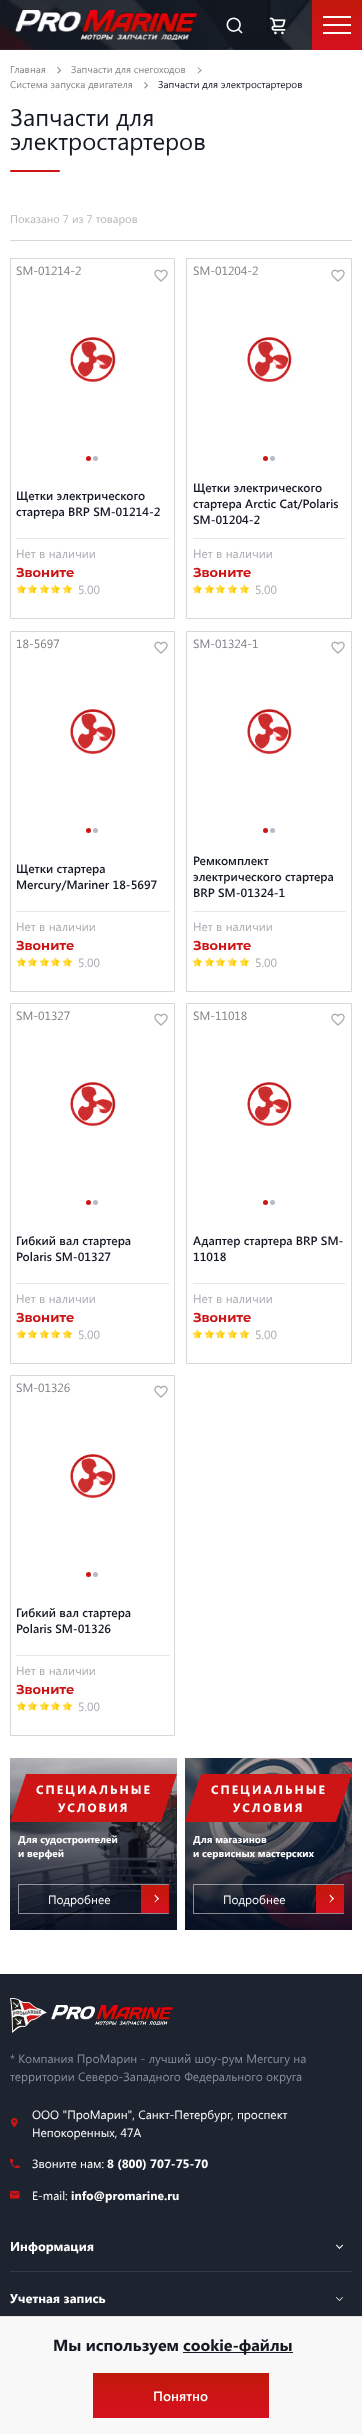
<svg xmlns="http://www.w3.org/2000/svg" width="362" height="2434">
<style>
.a{font:10px Segoe UI;fill:#84868a}
.b{font:10px Segoe UI;fill:#151924}
.c{font:24px Segoe UI;fill:#151924}
.d{font:11.25px Segoe UI;fill:#b6b6b6}
.e{font:12px Segoe UI;fill:#7c7e83}
.f{font:600 12px Segoe UI;fill:#151924}
.g{font:12px Segoe UI;fill:#aaacb2}
.h{font:bold 13px Montserrat;fill:#cd1516}
.i{font:bold 12px Segoe UI;letter-spacing:2px;fill:#fff}
.j{font:bold 10px Segoe UI;fill:#fff}
.k{font:12px Segoe UI;fill:#fff}
.l{font:12px Segoe UI;fill:#878d9f}
.m{font:bold 12px Segoe UI;fill:#fff}
.n{font:bold 12.75px Segoe UI;fill:#fff}
.o{font:bold 16px Segoe UI;fill:#151924}
.p{font:600 13.5px Segoe UI;fill:#fff}
</style>
<defs>
<linearGradient id="g1" gradientUnits="userSpaceOnUse" x1="337" y1="50" x2="337" y2="0"><stop offset="0" stop-color="#d61020"/><stop offset="1" stop-color="#c2190a"/></linearGradient>
<linearGradient id="g2" gradientUnits="userSpaceOnUse" x1="155" y1="1913" x2="155" y2="1885"><stop offset="0" stop-color="#d61020"/><stop offset="1" stop-color="#c2190a"/></linearGradient>
<linearGradient id="g3" gradientUnits="userSpaceOnUse" x1="330" y1="1913" x2="330" y2="1885"><stop offset="0" stop-color="#d61020"/><stop offset="1" stop-color="#c2190a"/></linearGradient>
<linearGradient id="g4" gradientUnits="userSpaceOnUse" x1="181" y1="2418" x2="181" y2="2373"><stop offset="0" stop-color="#d61020"/><stop offset="1" stop-color="#c2190a"/></linearGradient>
</defs>
<rect width="100%" height="100%" fill="#fff"/>
<image href="1.png" x="0" y="0" width="312" height="50"/>
<image href="2.png" x="15" y="10" width="182" height="30"/>
<image href="3.png" x="226" y="17" width="17" height="17"/>
<image href="4.png" x="269" y="17" width="17" height="18"/>
<path fill="url(#g1)" d="M312 0h50v50H312z"/>
<path fill="#fff" d="M323 16h28v2H323z"/>
<path fill="#fff" d="M323 24h28v2H323z"/>
<path fill="#fff" d="M323 32h28v2H323z"/>
<path fill="#84868a" d="M58 67l3 3.5l-.5 .5l-3.5-3.5z"/>
<path fill="#84868a" d="M60.5 69.5l.5 1l-3 3l-1-.5z"/>
<path fill="#84868a" d="M198 67l3.5 3.5l-.5 .5l-3.5-3.5z"/>
<path fill="#84868a" d="M201 69.5l.5 1l-3.5 3l-.5-.5z"/>
<path fill="#84868a" d="M145 82l3 3.5l-.5 .5l-3.5-3.5z"/>
<path fill="#84868a" d="M147.5 84.5l.5 1l-3 3l-1-.5z"/>
<rect fill="#cd1516" x="10" y="170" width="50" height="2" rx="1"/>
<path fill="#d8d8d8" d="M10 240h342v1H10z"/>
<path fill="none" stroke="#d8d8d8" d="M10.5 258.5h164v360H10.5z"/>
<image href="5.png" x="154" y="269" width="14" height="13"/>
<image href="6.png" x="70" y="337" width="46" height="45"/>
<circle fill="#cd1516" cx="88.5" cy="458.5" r="2.5"/>
<circle fill="#b3bcc5" cx="95.5" cy="458.5" r="2.5"/>
<path fill="#e8e8e8" d="M16 538h154v1H16z"/>
<image href="7.png" x="16" y="584" width="10" height="10"/>
<image href="7.png" x="27" y="584" width="10" height="10"/>
<image href="7.png" x="39" y="584" width="10" height="10"/>
<image href="7.png" x="50" y="584" width="10" height="10"/>
<image href="7.png" x="62" y="584" width="10" height="10"/>
<path fill="none" stroke="#d8d8d8" d="M186.5 258.5h165v360H186.5z"/>
<image href="5.png" x="331" y="269" width="14" height="13"/>
<image href="8.png" x="247" y="337" width="45" height="45"/>
<circle fill="#cd1516" cx="265.5" cy="458.5" r="2.5"/>
<circle fill="#b3bcc5" cx="272.5" cy="458.5" r="2.5"/>
<path fill="#e8e8e8" d="M193 538h153v1H193z"/>
<image href="7.png" x="192" y="584" width="10" height="10"/>
<image href="7.png" x="204" y="584" width="10" height="10"/>
<image href="7.png" x="215" y="584" width="10" height="10"/>
<image href="7.png" x="227" y="584" width="10" height="10"/>
<image href="7.png" x="239" y="584" width="10" height="10"/>
<path fill="none" stroke="#d8d8d8" d="M10.5 631.5h164v360H10.5z"/>
<image href="5.png" x="154" y="641" width="14" height="13"/>
<image href="6.png" x="70" y="709" width="46" height="45"/>
<circle fill="#cd1516" cx="88.5" cy="830.5" r="2.5"/>
<circle fill="#b3bcc5" cx="95.5" cy="830.5" r="2.5"/>
<path fill="#e8e8e8" d="M16 911h154v1H16z"/>
<image href="7.png" x="16" y="957" width="10" height="10"/>
<image href="7.png" x="27" y="957" width="10" height="10"/>
<image href="7.png" x="39" y="957" width="10" height="10"/>
<image href="7.png" x="50" y="957" width="10" height="10"/>
<image href="7.png" x="62" y="957" width="10" height="10"/>
<path fill="none" stroke="#d8d8d8" d="M186.5 631.5h165v360H186.5z"/>
<image href="5.png" x="331" y="641" width="14" height="13"/>
<image href="8.png" x="247" y="709" width="45" height="45"/>
<circle fill="#cd1516" cx="265.5" cy="830.5" r="2.5"/>
<circle fill="#b3bcc5" cx="272.5" cy="830.5" r="2.5"/>
<path fill="#e8e8e8" d="M193 911h153v1H193z"/>
<image href="7.png" x="192" y="957" width="10" height="10"/>
<image href="7.png" x="204" y="957" width="10" height="10"/>
<image href="7.png" x="215" y="957" width="10" height="10"/>
<image href="7.png" x="227" y="957" width="10" height="10"/>
<image href="7.png" x="239" y="957" width="10" height="10"/>
<path fill="none" stroke="#d8d8d8" d="M10.5 1003.5h164v360H10.5z"/>
<image href="5.png" x="154" y="1013" width="14" height="13"/>
<image href="9.png" x="70" y="1082" width="46" height="44"/>
<circle fill="#cd1516" cx="88.5" cy="1202.5" r="2.5"/>
<circle fill="#b3bcc5" cx="95.5" cy="1202.5" r="2.5"/>
<path fill="#e8e8e8" d="M16 1283h154v1H16z"/>
<image href="7.png" x="16" y="1329" width="10" height="10"/>
<image href="7.png" x="27" y="1329" width="10" height="10"/>
<image href="7.png" x="39" y="1329" width="10" height="10"/>
<image href="7.png" x="50" y="1329" width="10" height="10"/>
<image href="7.png" x="62" y="1329" width="10" height="10"/>
<path fill="none" stroke="#d8d8d8" d="M186.5 1003.5h165v360H186.5z"/>
<image href="5.png" x="331" y="1013" width="14" height="13"/>
<image href="10.png" x="247" y="1082" width="45" height="44"/>
<circle fill="#cd1516" cx="265.5" cy="1202.5" r="2.5"/>
<circle fill="#b3bcc5" cx="272.5" cy="1202.5" r="2.5"/>
<path fill="#e8e8e8" d="M193 1283h153v1H193z"/>
<image href="7.png" x="192" y="1329" width="10" height="10"/>
<image href="7.png" x="204" y="1329" width="10" height="10"/>
<image href="7.png" x="215" y="1329" width="10" height="10"/>
<image href="7.png" x="227" y="1329" width="10" height="10"/>
<image href="7.png" x="239" y="1329" width="10" height="10"/>
<path fill="none" stroke="#d8d8d8" d="M10.5 1375.5h164v360H10.5z"/>
<image href="5.png" x="154" y="1385" width="14" height="13"/>
<image href="9.png" x="70" y="1454" width="46" height="44"/>
<circle fill="#cd1516" cx="88.5" cy="1574.5" r="2.5"/>
<circle fill="#b3bcc5" cx="95.5" cy="1574.5" r="2.5"/>
<path fill="#e8e8e8" d="M16 1655h154v1H16z"/>
<image href="7.png" x="16" y="1701" width="10" height="10"/>
<image href="7.png" x="27" y="1701" width="10" height="10"/>
<image href="7.png" x="39" y="1701" width="10" height="10"/>
<image href="7.png" x="50" y="1701" width="10" height="10"/>
<image href="7.png" x="62" y="1701" width="10" height="10"/>
<image href="11.png" x="10" y="1758" width="167" height="172"/>
<path fill="#cd1516" d="M26 1774h151l-16 48h-151z"/>
<path fill="none" stroke="#ffffff80" d="M18.5 1884.5h150v29H18.5z"/>
<path fill="url(#g2)" d="M141 1885h28v28H141z"/>
<path fill="#fff" d="M155 1894.5l4 4l-1 1l-3.5-4z"/>
<path fill="#fff" d="M158 1898l1 .5l-4 4l-.5-.5z"/>
<image href="12.png" x="185" y="1758" width="167" height="172"/>
<path fill="#cd1516" d="M201 1774h151l-16 48h-151z"/>
<path fill="none" stroke="#ffffff80" d="M193.5 1884.5h150v29H193.5z"/>
<path fill="url(#g3)" d="M316 1885h28v28H316z"/>
<path fill="#fff" d="M330 1894.5l4 4l-1 1l-3.5-4z"/>
<path fill="#fff" d="M333 1898l1 .5l-4 4l-.5-.5z"/>
<path fill="#1d242f" d="M0 1974h362v342H0z"/>
<image href="13.png" x="10" y="1998" width="37" height="35"/>
<image href="14.png" x="51" y="2005" width="122" height="20"/>
<image href="15.png" x="11" y="2118" width="7" height="10"/>
<image href="16.png" x="10" y="2159" width="10" height="9"/>
<image href="17.png" x="10" y="2191" width="10" height="8"/>
<path fill="#343a44" d="M10 2271h342v1H10z"/>
<path fill="#fff" d="M342.5 2244.5l.5 1l-3.5 3.5l-.5-1z"/>
<path fill="#fff" d="M336.5 2244.5l3.5 3.5l-.5 1l-3.5-3.5z"/>
<path fill="#fff" d="M342.5 2297l.5 .5l-3.5 3.5l-.5-.5z"/>
<path fill="#fff" d="M336.5 2297l3.5 3.5l-.5 .5l-3.5-3.5z"/>
<path fill="#f8f8f8" d="M0 2317h362v117H0z"/>
<path fill="#e4e4e4" d="M0 2316h362v1H0z"/>
<path fill="#151924" d="M183 2352h110v1H183z"/>
<path fill="url(#g4)" d="M93 2373h176v45H93z"/>
<text class="a" x="10" y="73">Главная</text>
<text class="a" x="71" y="73">Запчасти для снегоходов</text>
<text class="a" x="10" y="88">Система запуска двигателя</text>
<text class="b" x="158" y="88">Запчасти для электростартеров</text>
<text class="c" x="10" y="126">Запчасти для</text>
<text class="c" x="10" y="150">электростартеров</text>
<text class="d" x="10" y="223">Показано 7 из 7 товаров</text>
<text class="e" x="16" y="275">SM-01214-2</text>
<text class="f" x="16" y="500">Щетки электрического</text>
<text class="f" x="16" y="516">стартера BRP SM-01214-2</text>
<text class="g" x="16" y="558">Нет в наличии</text>
<text class="h" x="16" y="577">Звоните</text>
<text class="g" x="78" y="594">5.00</text>
<text class="e" x="193" y="275">SM-01204-2</text>
<text class="f" x="193" y="492">Щетки электрического</text>
<text class="f" x="193" y="508">стартера Arctic Cat/Polaris</text>
<text class="f" x="193" y="524">SM-01204-2</text>
<text class="g" x="193" y="558">Нет в наличии</text>
<text class="h" x="193" y="577">Звоните</text>
<text class="g" x="255" y="594">5.00</text>
<text class="e" x="16" y="648">18-5697</text>
<text class="f" x="16" y="873">Щетки стартера</text>
<text class="f" x="16" y="889">Mercury/Mariner 18-5697</text>
<text class="g" x="16" y="931">Нет в наличии</text>
<text class="h" x="16" y="950">Звоните</text>
<text class="g" x="78" y="967">5.00</text>
<text class="e" x="193" y="648">SM-01324-1</text>
<text class="f" x="193" y="865">Ремкомплект</text>
<text class="f" x="193" y="881">электрического стартера</text>
<text class="f" x="193" y="897">BRP SM-01324-1</text>
<text class="g" x="193" y="931">Нет в наличии</text>
<text class="h" x="193" y="950">Звоните</text>
<text class="g" x="255" y="967">5.00</text>
<text class="e" x="16" y="1020">SM-01327</text>
<text class="f" x="16" y="1245">Гибкий вал стартера</text>
<text class="f" x="16" y="1261">Polaris SM-01327</text>
<text class="g" x="16" y="1303">Нет в наличии</text>
<text class="h" x="16" y="1322">Звоните</text>
<text class="g" x="78" y="1339">5.00</text>
<text class="e" x="193" y="1020">SM-11018</text>
<text class="f" x="193" y="1245">Адаптер стартера BRP SM-</text>
<text class="f" x="193" y="1261">11018</text>
<text class="g" x="193" y="1303">Нет в наличии</text>
<text class="h" x="193" y="1322">Звоните</text>
<text class="g" x="255" y="1339">5.00</text>
<text class="e" x="16" y="1392">SM-01326</text>
<text class="f" x="16" y="1617">Гибкий вал стартера</text>
<text class="f" x="16" y="1633">Polaris SM-01326</text>
<text class="g" x="16" y="1675">Нет в наличии</text>
<text class="h" x="16" y="1694">Звоните</text>
<text class="g" x="78" y="1711">5.00</text>
<text class="i" x="36" y="1794">СПЕЦИАЛЬНЫЕ</text>
<text class="i" x="58" y="1812">УСЛОВИЯ</text>
<text class="j" x="18" y="1843">Для судостроителей</text>
<text class="j" x="18" y="1857">и верфей</text>
<text class="k" x="48" y="1904">Подробнее</text>
<text class="i" x="211" y="1794">СПЕЦИАЛЬНЫЕ</text>
<text class="i" x="233" y="1812">УСЛОВИЯ</text>
<text class="j" x="193" y="1843">Для магазинов</text>
<text class="j" x="193" y="1857">и сервисных мастерских</text>
<text class="k" x="223" y="1904">Подробнее</text>
<text class="l" x="10" y="2063">* Компания ПроМарин - лучший шоу-рум Mercury на</text>
<text class="l" x="10" y="2081">территории Северо-Западного Федерального округа</text>
<text class="k" x="32" y="2119">ООО "ПроМарин", Санкт-Петербург</text>
<text class="k" x="231" y="2119">, проспект</text>
<text class="k" x="32" y="2137">Непокоренных, 47А</text>
<text class="k" x="32" y="2168">Звоните нам:</text>
<text class="m" x="107" y="2168">8 (800) 707-75-70</text>
<text class="k" x="32" y="2200">E-mail:</text>
<text class="m" x="71" y="2200">info@promarine.ru</text>
<text class="n" x="10" y="2251">Информация</text>
<text class="n" x="10" y="2303">Учетная запись</text>
<text class="o" x="53" y="2351">Мы используем</text>
<text class="o" x="183" y="2351">cookie-файлы</text>
<text class="p" x="153" y="2401">Понятно</text>
</svg>
